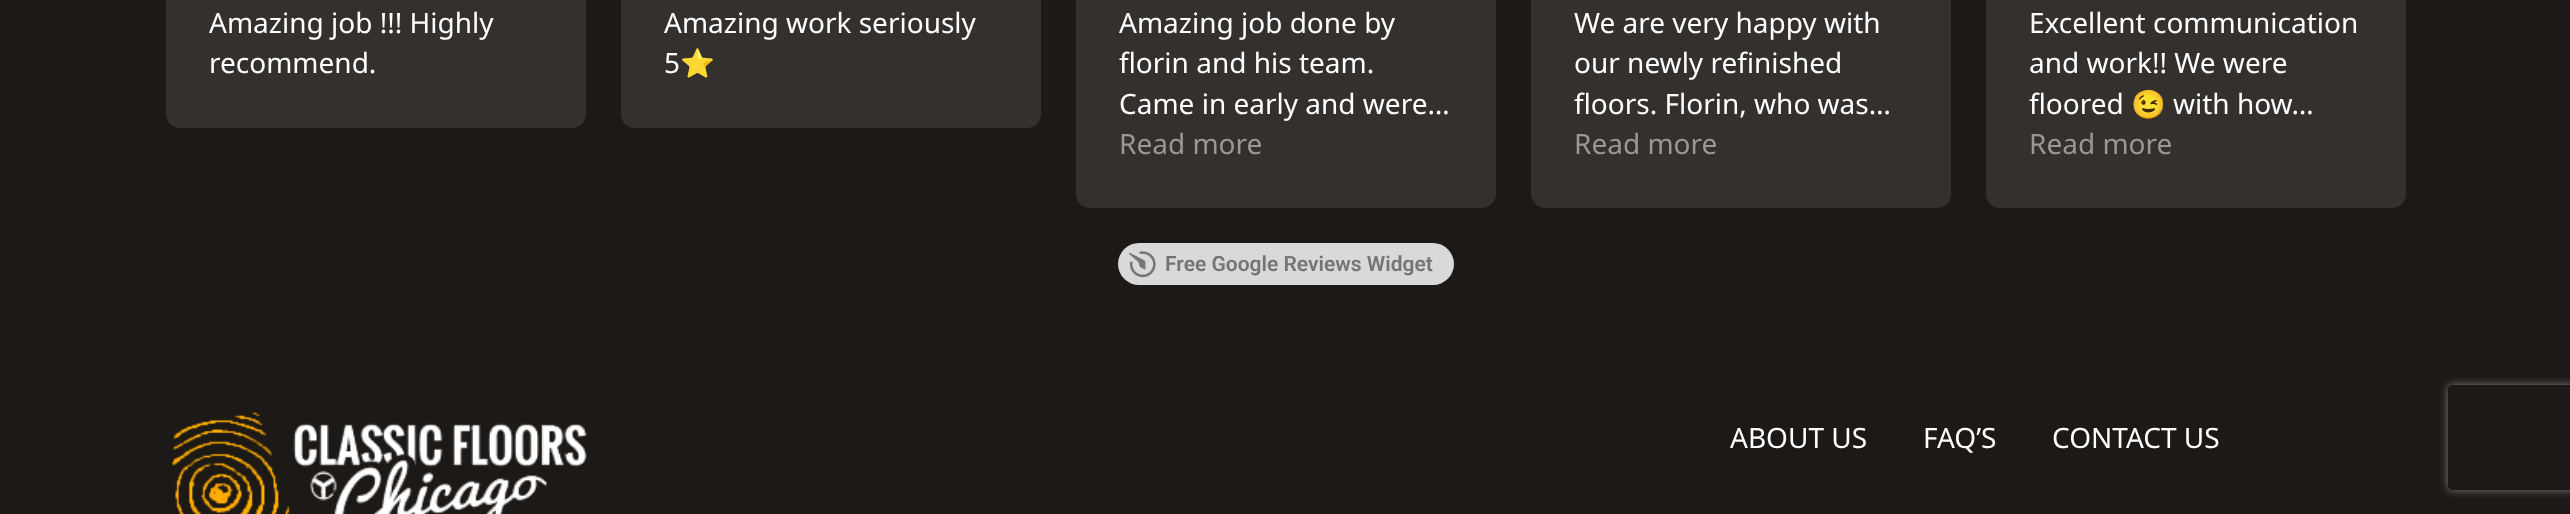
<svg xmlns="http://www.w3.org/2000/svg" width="2570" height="514">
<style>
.a{font:28px Noto Sans;fill:#fff}
.b{font:28px Noto Color Emoji;fill:#fff}
.c{font:28px Noto Sans;fill:#999897}
.d{font:600 21px Roboto;fill:#757575}
</style>
<defs>
<clipPath id="clip1"><path d="M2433 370h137v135h-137zm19 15h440c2 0 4 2 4 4v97c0 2-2 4-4 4h-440c-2 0-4-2-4-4v-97c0-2 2-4 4-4z" clip-rule="evenodd"/></clipPath>
</defs>
<rect width="100%" height="100%" fill="#1c1917"/>
<rect fill="#33302e" x="166" y="-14" width="420" height="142" rx="14"/>
<rect fill="#33302e" x="621" y="-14" width="420" height="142" rx="14"/>
<rect fill="#33302e" x="1076" y="-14" width="420" height="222" rx="14"/>
<rect fill="#33302e" x="1531" y="-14" width="420" height="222" rx="14"/>
<rect fill="#33302e" x="1986" y="-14" width="420" height="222" rx="14"/>
<rect fill="#d9d9d9" x="1118" y="243" width="336" height="42" rx="21"/>
<image href="1.png" x="1129" y="251" width="27" height="27"/>
<image href="2.png" x="168" y="412" width="419" height="102"/>
<g clip-path="url(#clip1)">
<rect fill="#808080" filter="blur(4.5px)" x="2448" y="385" width="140" height="105" rx="4"/>
</g>
<text class="a" x="209" y="33">Amazing job !!! Highly</text>
<text class="a" x="209" y="73">recommend.</text>
<text class="a" x="664" y="33">Amazing work seriously</text>
<text class="a" x="664" y="73">5</text>
<text class="b" x="680" y="73">⭐️</text>
<text class="a" x="1119" y="33">Amazing job done by</text>
<text class="a" x="1119" y="73">florin and his team.</text>
<text class="a" x="1119" y="114">Came in early and were…</text>
<text class="c" x="1119" y="154">Read more</text>
<text class="a" x="1574" y="33">We are very happy with</text>
<text class="a" x="1574" y="73">our newly refinished</text>
<text class="a" x="1574" y="114">floors. Florin, who was…</text>
<text class="c" x="1574" y="154">Read more</text>
<text class="a" x="2029" y="33">Excellent communication</text>
<text class="a" x="2029" y="73">and work!! We were</text>
<text class="a" x="2029" y="114">floored</text>
<text class="b" x="2131" y="114">😉</text>
<text class="a" x="2173" y="114">with how…</text>
<text class="c" x="2029" y="154">Read more</text>
<text class="d" x="1165" y="271">Free Google Reviews Widget</text>
<text class="a" x="1730" y="448">ABOUT US</text>
<text class="a" x="1923" y="448">FAQ’S</text>
<text class="a" x="2052" y="448">CONTACT US</text>
</svg>
